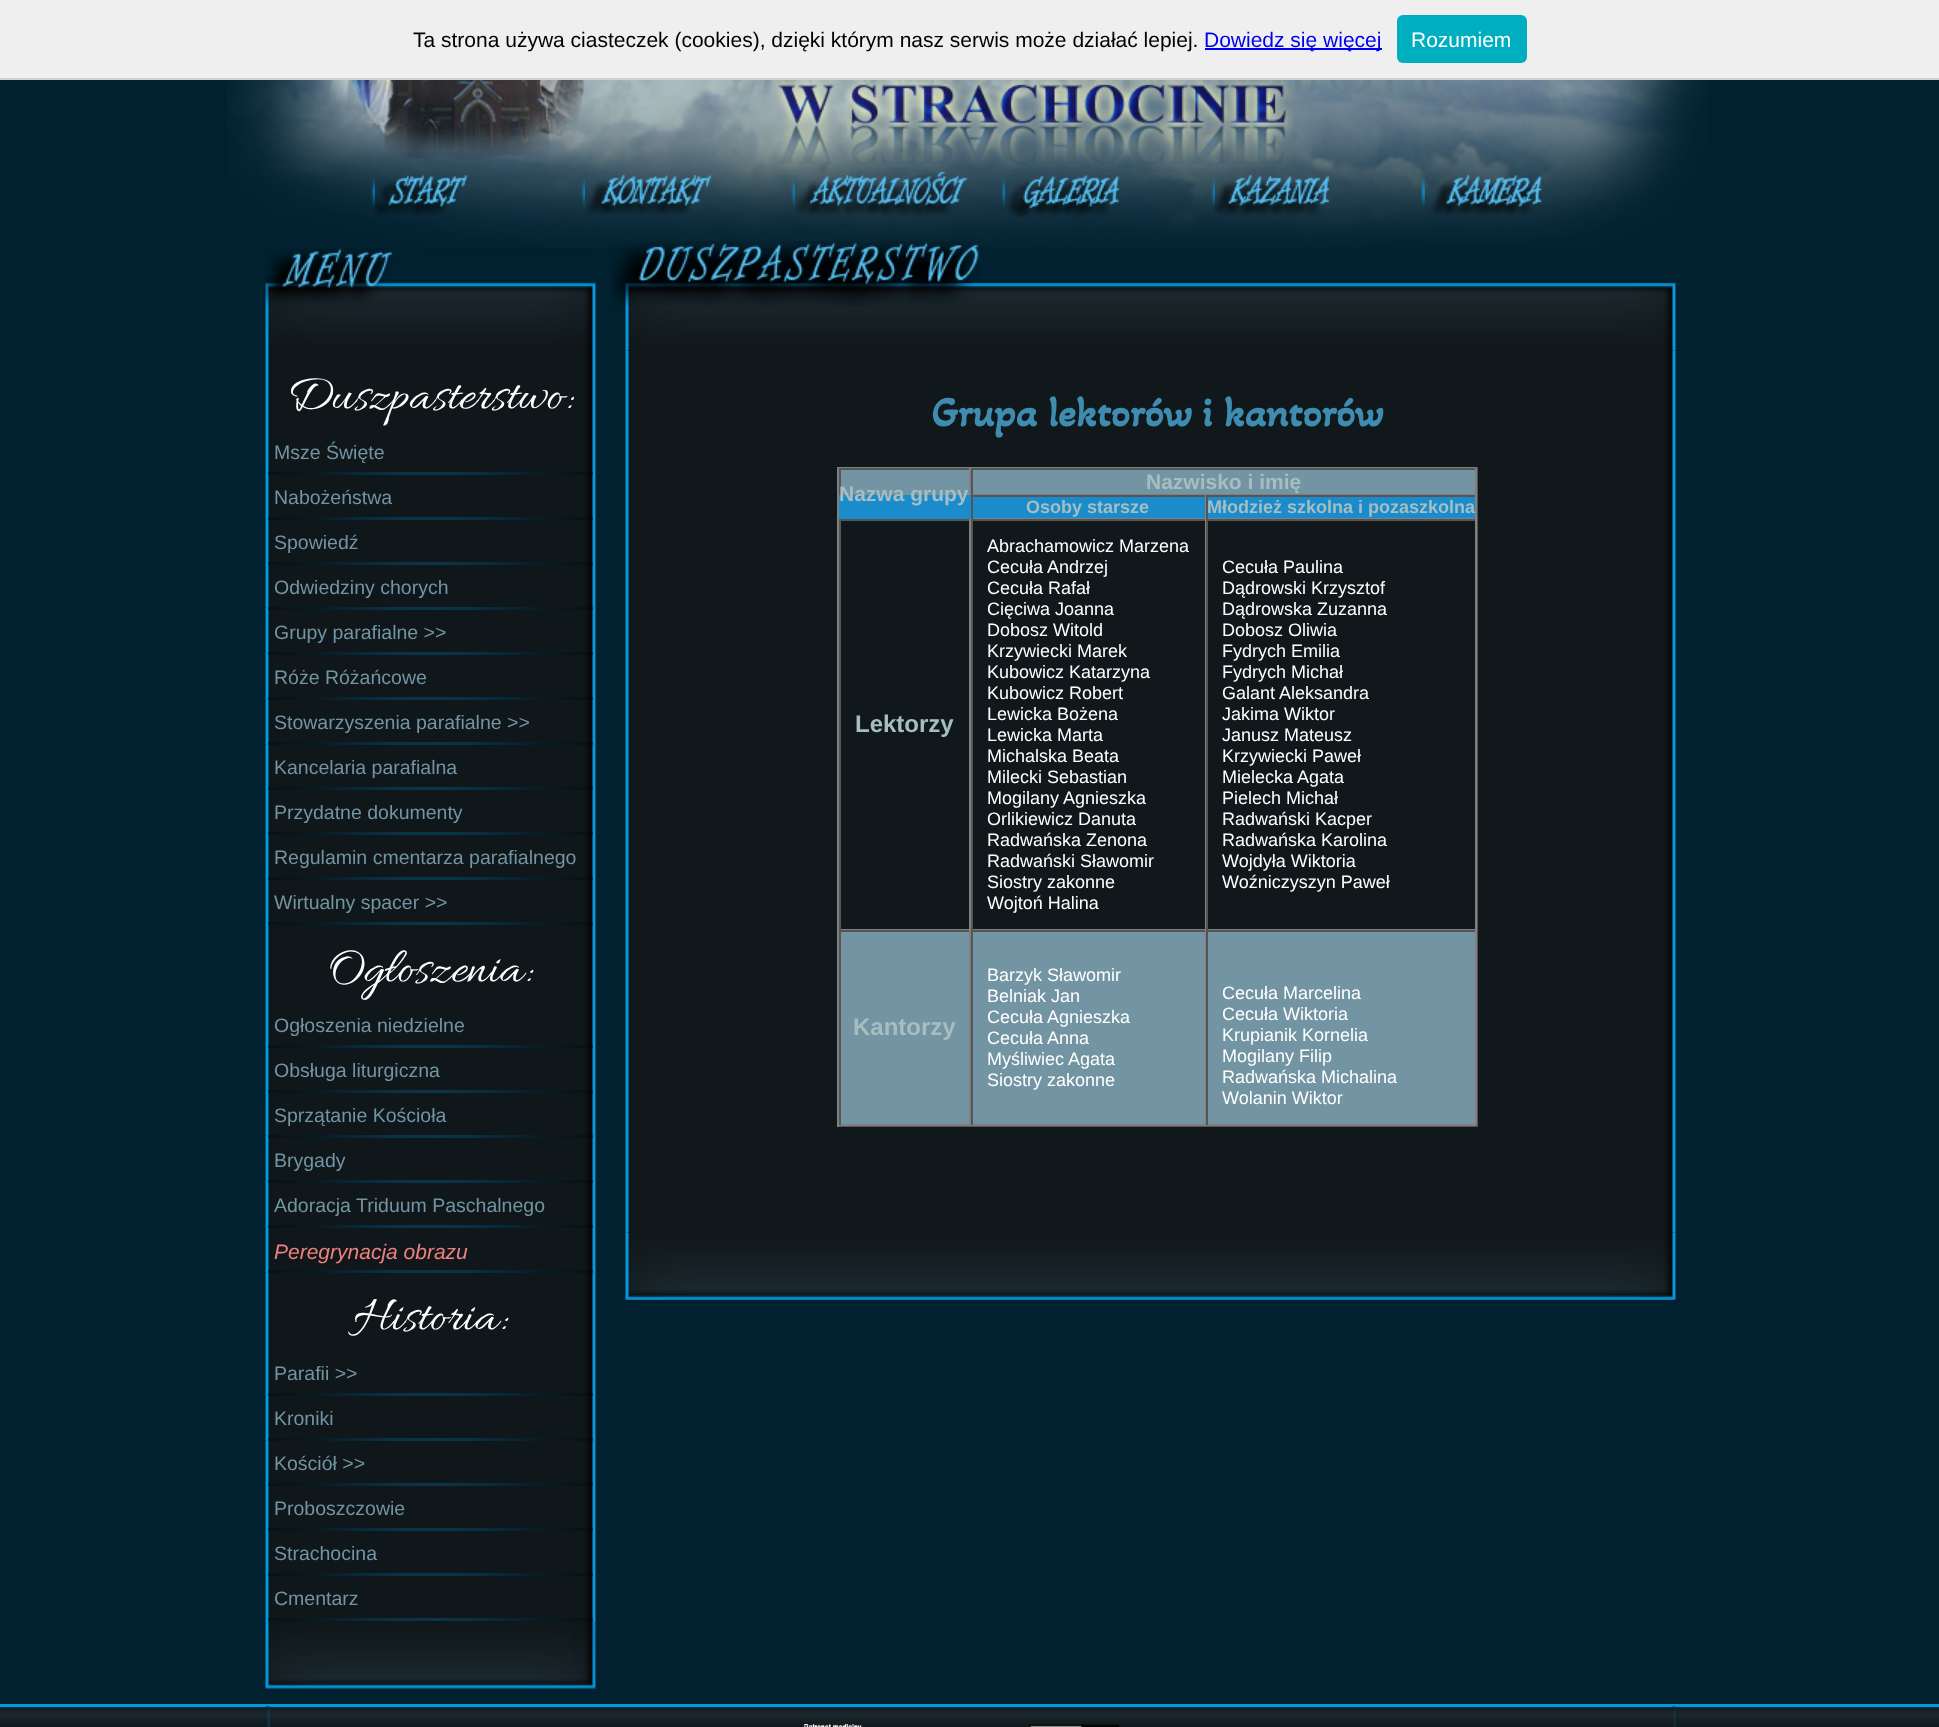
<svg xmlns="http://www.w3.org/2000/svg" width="1939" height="1727">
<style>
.a{font:21px Liberation Sans;fill:#000}
.b{font:21px Liberation Sans;fill:#00e}
.c{font:21px Liberation Sans;fill:#fff}
.d{font:51px Allura;fill:#fff}
.e{font:19.5px Liberation Sans;fill:#7294a3}
.f{font:italic 21px Liberation Sans;fill:#f08080}
.g{font:bold 42px Akaya Kanadaka;fill:#3f8cb1}
.h{font:bold 21px Liberation Sans;fill:#a6bec2}
.i{font:bold 18px Liberation Sans;fill:#a6bec2}
.j{font:bold 24px Liberation Sans;fill:#a6bec2}
.k{font:18px Liberation Sans;fill:#fff}
</style>
<rect width="100%" height="100%" fill="#012130"/>
<image href="1.png" x="227" y="80" width="1482" height="168"/>
<path fill="#efefef" d="M0 0h1939v78H0z"/>
<path fill="#d3d0d0" d="M0 78h1939v2H0z"/>
<path fill="#00e" d="M1205 48h177v2H1205z"/>
<rect fill="#00afbf" x="1397" y="15" width="130" height="48" rx="6"/>
<image href="2.png" x="329" y="80" width="257" height="80"/>
<image href="3.png" x="728" y="80" width="707" height="89"/>
<image href="4.png" x="370" y="176" width="5" height="33"/>
<image href="5.png" x="374" y="174" width="94" height="42"/>
<image href="6.png" x="580" y="176" width="5" height="32"/>
<image href="7.png" x="586" y="174" width="126" height="41"/>
<image href="8.png" x="790" y="177" width="5" height="31"/>
<image href="9.png" x="795" y="172" width="173" height="44"/>
<image href="10.png" x="1000" y="176" width="5" height="32"/>
<image href="11.png" x="1007" y="174" width="113" height="43"/>
<image href="12.png" x="1210" y="176" width="5" height="32"/>
<image href="13.png" x="1213" y="174" width="117" height="42"/>
<image href="14.png" x="1420" y="176" width="5" height="32"/>
<image href="15.png" x="1420" y="174" width="122" height="42"/>
<image href="16.png" x="265" y="248" width="331" height="104"/>
<image href="17.png" x="265" y="352" width="331" height="1269"/>
<image href="18.png" x="268" y="472" width="325" height="3"/>
<image href="18.png" x="268" y="517" width="325" height="3"/>
<image href="18.png" x="268" y="562" width="325" height="3"/>
<image href="18.png" x="268" y="607" width="325" height="3"/>
<image href="18.png" x="268" y="652" width="325" height="3"/>
<image href="18.png" x="268" y="697" width="325" height="3"/>
<image href="18.png" x="268" y="742" width="325" height="3"/>
<image href="18.png" x="268" y="787" width="325" height="3"/>
<image href="18.png" x="268" y="832" width="325" height="3"/>
<image href="18.png" x="268" y="877" width="325" height="3"/>
<image href="18.png" x="268" y="922" width="325" height="3"/>
<image href="18.png" x="268" y="1045" width="325" height="3"/>
<image href="18.png" x="268" y="1090" width="325" height="3"/>
<image href="18.png" x="268" y="1135" width="325" height="3"/>
<image href="18.png" x="268" y="1180" width="325" height="3"/>
<image href="18.png" x="268" y="1225" width="325" height="3"/>
<image href="18.png" x="268" y="1270" width="325" height="3"/>
<image href="18.png" x="268" y="1393" width="325" height="3"/>
<image href="18.png" x="268" y="1438" width="325" height="3"/>
<image href="18.png" x="268" y="1483" width="325" height="3"/>
<image href="18.png" x="268" y="1528" width="325" height="3"/>
<image href="18.png" x="268" y="1573" width="325" height="3"/>
<image href="18.png" x="268" y="1618" width="325" height="3"/>
<image href="19.png" x="265" y="1621" width="331" height="68"/>
<image href="21.png" x="625" y="283" width="1051" height="68"/>
<image href="20.png" x="610" y="241" width="369" height="65"/>
<image href="22.png" x="625" y="350" width="1051" height="883"/>
<path fill="#808080" d="M837 467h641v1H837z"/>
<path fill="#555" d="M1476 467h2v660H1476z"/>
<path fill="#555" d="M837 1125h641v2H837z"/>
<path fill="#808080" d="M837 467h2v660H837z"/>
<path fill="#7294a3" d="M841 470h634v25H841z"/>
<path fill="#555" d="M839 468h637v2H839z"/>
<path fill="#808080" d="M1475 468h2v27H1475z"/>
<path fill="#808080" d="M971 494h505v1H971z"/>
<path fill="#555" d="M971 468h2v27H971z"/>
<path fill="#808080" d="M969 468h2v27H969z"/>
<path fill="#555" d="M839 468h2v27H839z"/>
<path fill="#1a8ccb" d="M839 495h636v24H839z"/>
<path fill="#555" d="M971 495h505v2H971z"/>
<path fill="#808080" d="M1205 495h1v24H1205z"/>
<path fill="#808080" d="M971 518h235v1H971z"/>
<path fill="#555" d="M971 495h2v24H971z"/>
<path fill="#808080" d="M1475 495h2v24H1475z"/>
<path fill="#808080" d="M1206 518h270v1H1206z"/>
<path fill="#555" d="M1206 495h2v24H1206z"/>
<path fill="#555" d="M839 519h637v2H839z"/>
<path fill="#808080" d="M969 519h2v411H969z"/>
<path fill="#808080" d="M839 929h132v1H839z"/>
<path fill="#555" d="M839 519h2v411H839z"/>
<path fill="#808080" d="M1205 519h1v411H1205z"/>
<path fill="#808080" d="M971 929h235v1H971z"/>
<path fill="#555" d="M971 519h2v411H971z"/>
<path fill="#808080" d="M1475 519h2v411H1475z"/>
<path fill="#808080" d="M1206 929h270v1H1206z"/>
<path fill="#555" d="M1206 519h2v411H1206z"/>
<path fill="#7294a3" d="M841 932h634v192H841z"/>
<path fill="#555" d="M839 930h637v2H839z"/>
<path fill="#808080" d="M969 930h2v195H969z"/>
<path fill="#808080" d="M839 1124h132v2H839z"/>
<path fill="#555" d="M839 930h2v195H839z"/>
<path fill="#808080" d="M1205 930h1v195H1205z"/>
<path fill="#808080" d="M971 1124h235v2H971z"/>
<path fill="#555" d="M971 930h2v195H971z"/>
<path fill="#808080" d="M1475 930h2v195H1475z"/>
<path fill="#808080" d="M1206 1124h270v2H1206z"/>
<path fill="#555" d="M1206 930h2v195H1206z"/>
<image href="23.png" x="625" y="1232" width="1051" height="68"/>
<image href="24.png" x="0" y="1707" width="1939" height="20"/>
<path fill="#0798dc" d="M0 1704h1939v3H0z"/>
<image href="25.png" x="265" y="1706" width="5" height="21"/>
<image href="26.png" x="804" y="1724" width="58" height="3"/>
<image href="27.png" x="1029" y="1724" width="90" height="3"/>
<image href="28.png" x="1672" y="1706" width="4" height="21"/>
<text class="a" x="413" y="47">Ta strona używa ciasteczek (cookies), dzięki którym nasz serwis może działać lepiej.</text>
<text class="b" x="1204" y="47">Dowiedz się więcej</text>
<text class="c" x="1411" y="47">Rozumiem</text>
<text class="d" x="287" y="408">Duszpasterstwo:</text>
<text class="e" x="274" y="459">Msze Święte</text>
<text class="e" x="274" y="504">Nabożeństwa</text>
<text class="e" x="274" y="549">Spowiedź</text>
<text class="e" x="274" y="594">Odwiedziny chorych</text>
<text class="e" x="274" y="639">Grupy parafialne &gt;&gt;</text>
<text class="e" x="274" y="684">Róże Różańcowe</text>
<text class="e" x="274" y="729">Stowarzyszenia parafialne &gt;&gt;</text>
<text class="e" x="274" y="774">Kancelaria parafialna</text>
<text class="e" x="274" y="819">Przydatne dokumenty</text>
<text class="e" x="274" y="864">Regulamin cmentarza parafialnego</text>
<text class="e" x="274" y="909">Wirtualny spacer &gt;&gt;</text>
<text class="d" x="328" y="981">Ogłoszenia:</text>
<text class="e" x="274" y="1032">Ogłoszenia niedzielne</text>
<text class="e" x="274" y="1077">Obsługa liturgiczna</text>
<text class="e" x="274" y="1122">Sprzątanie Kościoła</text>
<text class="e" x="274" y="1167">Brygady</text>
<text class="e" x="274" y="1212">Adoracja Triduum Paschalnego</text>
<text class="f" x="274" y="1259">Peregrynacja obrazu</text>
<text class="d" x="353" y="1329">Historia:</text>
<text class="e" x="274" y="1380">Parafii &gt;&gt;</text>
<text class="e" x="274" y="1425">Kroniki</text>
<text class="e" x="274" y="1470">Kościół &gt;&gt;</text>
<text class="e" x="274" y="1515">Proboszczowie</text>
<text class="e" x="274" y="1560">Strachocina</text>
<text class="e" x="274" y="1605">Cmentarz</text>
<text class="g" x="931" y="426">Grupa lektorów i kantorów</text>
<text class="h" x="1146" y="489">Nazwisko i imię</text>
<text class="h" x="839" y="501">Nazwa grupy</text>
<text class="i" x="1026" y="513">Osoby starsze</text>
<text class="i" x="1207" y="513">Młodzież szkolna i pozaszkolna</text>
<text class="j" x="855" y="732">Lektorzy</text>
<text class="k" x="987" y="552">Abrachamowicz Marzena</text>
<text class="k" x="987" y="573">Cecuła Andrzej</text>
<text class="k" x="987" y="594">Cecuła Rafał</text>
<text class="k" x="987" y="615">Cięciwa Joanna</text>
<text class="k" x="987" y="636">Dobosz Witold</text>
<text class="k" x="987" y="657">Krzywiecki Marek</text>
<text class="k" x="987" y="678">Kubowicz Katarzyna</text>
<text class="k" x="987" y="699">Kubowicz Robert</text>
<text class="k" x="987" y="720">Lewicka Bożena</text>
<text class="k" x="987" y="741">Lewicka Marta</text>
<text class="k" x="987" y="762">Michalska Beata</text>
<text class="k" x="987" y="783">Milecki Sebastian</text>
<text class="k" x="987" y="804">Mogilany Agnieszka</text>
<text class="k" x="987" y="825">Orlikiewicz Danuta</text>
<text class="k" x="987" y="846">Radwańska Zenona</text>
<text class="k" x="987" y="867">Radwański Sławomir</text>
<text class="k" x="987" y="888">Siostry zakonne</text>
<text class="k" x="987" y="909">Wojtoń Halina</text>
<text class="k" x="1222" y="573">Cecuła Paulina</text>
<text class="k" x="1222" y="594">Dądrowski Krzysztof</text>
<text class="k" x="1222" y="615">Dądrowska Zuzanna</text>
<text class="k" x="1222" y="636">Dobosz Oliwia</text>
<text class="k" x="1222" y="657">Fydrych Emilia</text>
<text class="k" x="1222" y="678">Fydrych Michał</text>
<text class="k" x="1222" y="699">Galant Aleksandra</text>
<text class="k" x="1222" y="720">Jakima Wiktor</text>
<text class="k" x="1222" y="741">Janusz Mateusz</text>
<text class="k" x="1222" y="762">Krzywiecki Paweł</text>
<text class="k" x="1222" y="783">Mielecka Agata</text>
<text class="k" x="1222" y="804">Pielech Michał</text>
<text class="k" x="1222" y="825">Radwański Kacper</text>
<text class="k" x="1222" y="846">Radwańska Karolina</text>
<text class="k" x="1222" y="867">Wojdyła Wiktoria</text>
<text class="k" x="1222" y="888">Woźniczyszyn Paweł</text>
<text class="j" x="853" y="1035">Kantorzy</text>
<text class="k" x="987" y="981">Barzyk Sławomir</text>
<text class="k" x="987" y="1002">Belniak Jan</text>
<text class="k" x="987" y="1023">Cecuła Agnieszka</text>
<text class="k" x="987" y="1044">Cecuła Anna</text>
<text class="k" x="987" y="1065">Myśliwiec Agata</text>
<text class="k" x="987" y="1086">Siostry zakonne</text>
<text class="k" x="1222" y="999">Cecuła Marcelina</text>
<text class="k" x="1222" y="1020">Cecuła Wiktoria</text>
<text class="k" x="1222" y="1041">Krupianik Kornelia</text>
<text class="k" x="1222" y="1062">Mogilany Filip</text>
<text class="k" x="1222" y="1083">Radwańska Michalina</text>
<text class="k" x="1222" y="1104">Wolanin Wiktor</text>
</svg>
